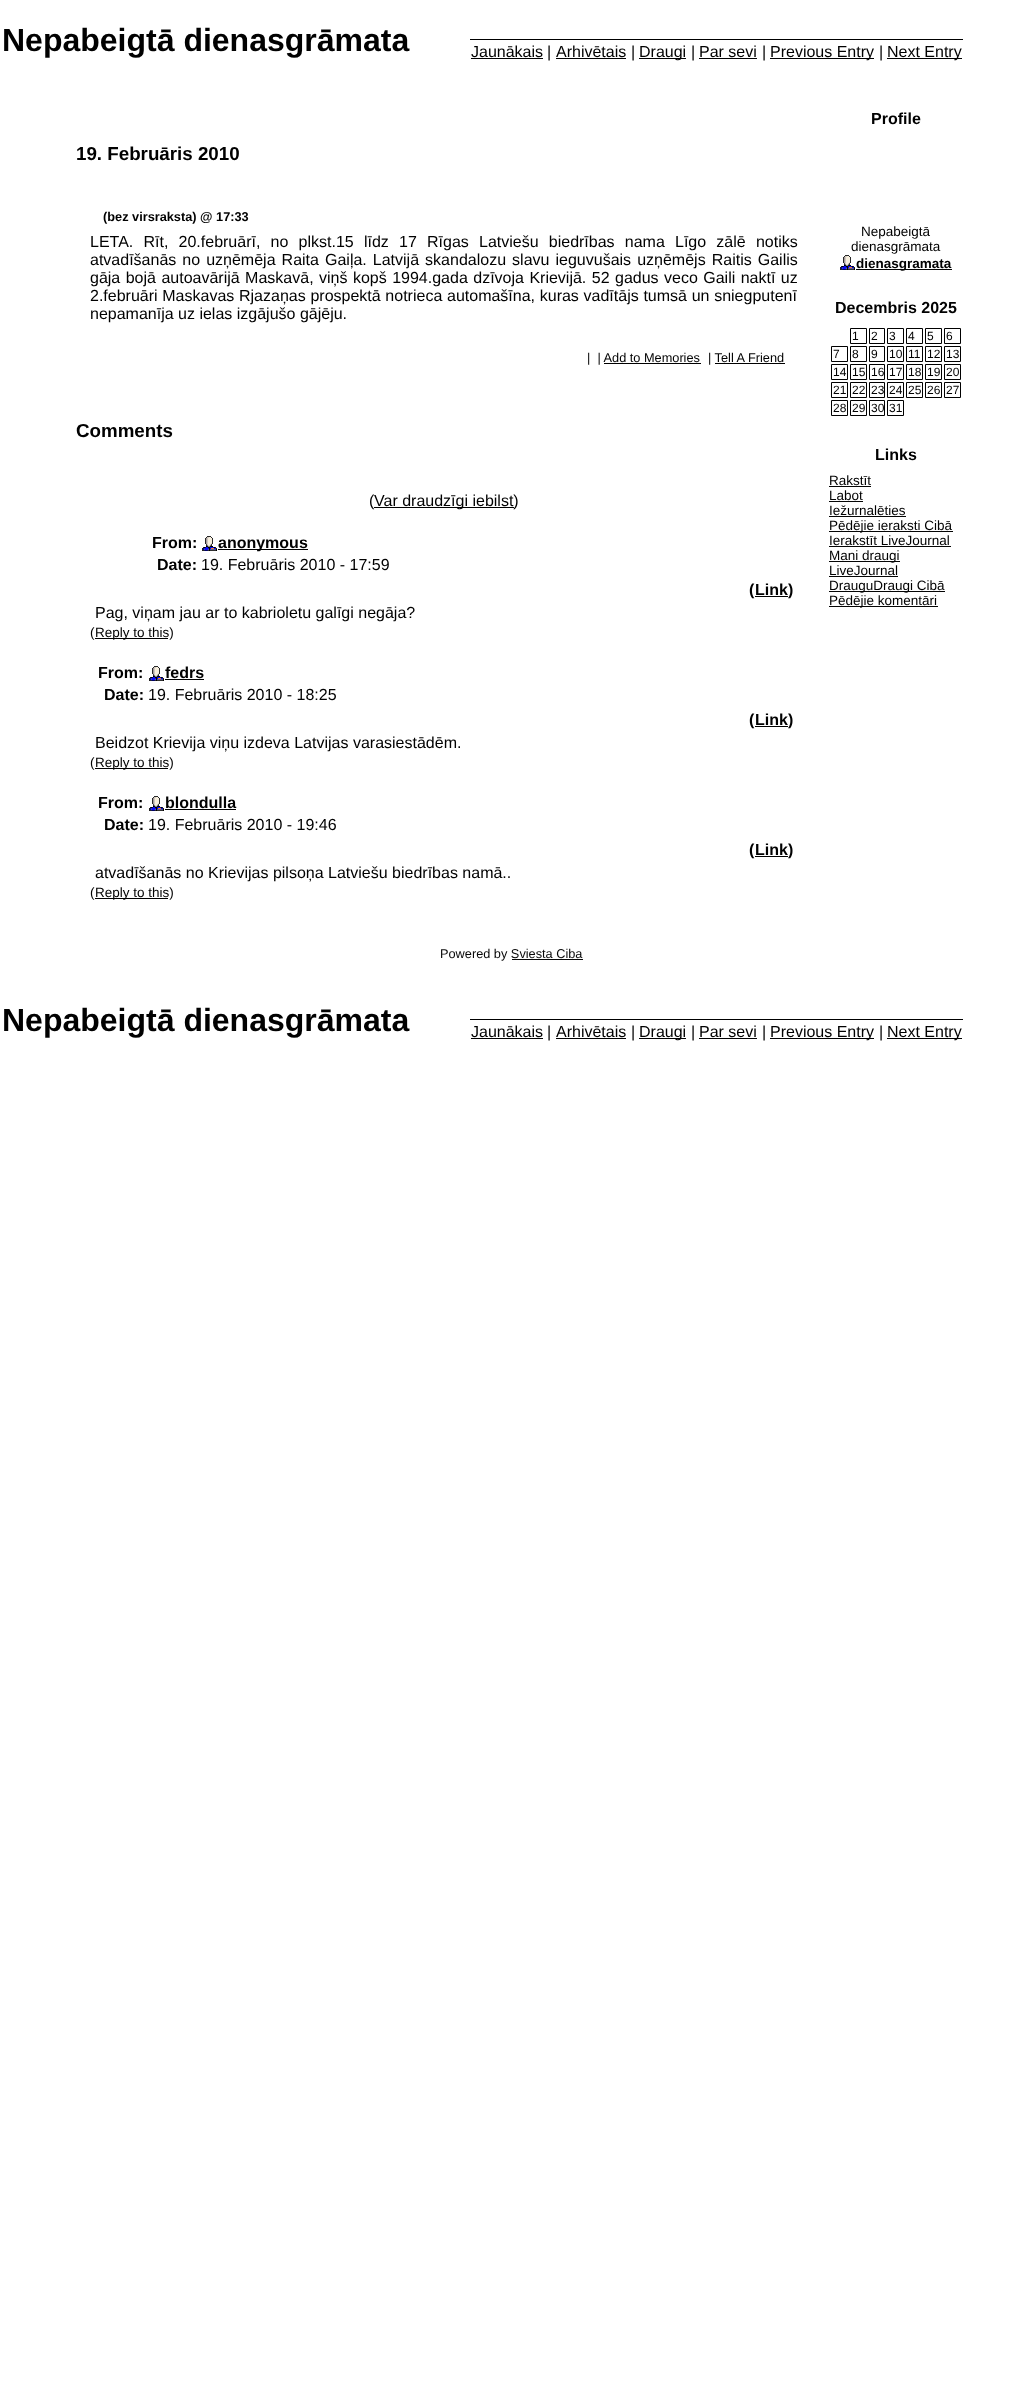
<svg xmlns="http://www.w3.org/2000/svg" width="1024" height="2393">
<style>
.a{font:bold 32px Liberation Sans;fill:#010101}
.b{font:16px Liberation Sans;fill:#010101}
.c{font:bold 18.75px Liberation Sans;fill:#010101}
.d{font:bold 12.75px Liberation Sans;fill:#010101}
.e{font:12.75px Liberation Sans;fill:#010101}
.f{font:bold 16px Liberation Sans;fill:#010101}
.g{font:13.5px Liberation Sans;fill:#010101}
.h{font:bold 13.5px Liberation Sans;fill:#010101}
.i{font:12px Liberation Sans;fill:#010101}
.j{font:12.75px Liberation Sans;fill:#070707}
</style>
<rect width="100%" height="100%" fill="#fff"/>
<path fill="#000" d="M470 39h493v1H470z"/>
<path fill="#010101" d="M471 58h72v1H471z"/>
<path fill="#010101" d="M556 58h70v1H556z"/>
<path fill="#010101" d="M639 58h47v1H639z"/>
<path fill="#010101" d="M699 58h58v1H699z"/>
<path fill="#010101" d="M770 58h104v1H770z"/>
<path fill="#010101" d="M887 58h75v1H887z"/>
<image href="1.png" x="202" y="536" width="15" height="15"/>
<path fill="#000" d="M218 549h90v1H218z"/>
<path fill="#000" d="M755 596h33v1H755z"/>
<path fill="#000" d="M95 638h73v1H95z"/>
<image href="1.png" x="149" y="666" width="15" height="15"/>
<path fill="#000" d="M165 679h39v1H165z"/>
<path fill="#000" d="M755 726h33v1H755z"/>
<path fill="#000" d="M95 768h73v1H95z"/>
<image href="1.png" x="149" y="796" width="15" height="15"/>
<path fill="#000" d="M165 809h71v1H165z"/>
<path fill="#000" d="M755 856h33v1H755z"/>
<path fill="#000" d="M95 898h73v1H95z"/>
<image href="1.png" x="840" y="255" width="15" height="15"/>
<path fill="#040404" d="M856 269h96v1H856z"/>
<path fill="none" stroke="#000" d="M850.5 328.5h16v15H850.5z"/>
<path fill="none" stroke="#000" d="M869.5 328.5h15v15H869.5z"/>
<path fill="none" stroke="#000" d="M887.5 328.5h16v15H887.5z"/>
<path fill="none" stroke="#000" d="M906.5 328.5h16v15H906.5z"/>
<path fill="none" stroke="#000" d="M925.5 328.5h16v15H925.5z"/>
<path fill="none" stroke="#000" d="M944.5 328.5h16v15H944.5z"/>
<path fill="none" stroke="#000" d="M831.5 346.5h16v15H831.5z"/>
<path fill="none" stroke="#000" d="M850.5 346.5h16v15H850.5z"/>
<path fill="none" stroke="#000" d="M869.5 346.5h15v15H869.5z"/>
<path fill="none" stroke="#000" d="M887.5 346.5h16v15H887.5z"/>
<path fill="none" stroke="#000" d="M906.5 346.5h16v15H906.5z"/>
<path fill="none" stroke="#000" d="M925.5 346.5h16v15H925.5z"/>
<path fill="none" stroke="#000" d="M944.5 346.5h16v15H944.5z"/>
<path fill="none" stroke="#000" d="M831.5 364.5h16v15H831.5z"/>
<path fill="none" stroke="#000" d="M850.5 364.5h16v15H850.5z"/>
<path fill="none" stroke="#000" d="M869.5 364.5h15v15H869.5z"/>
<path fill="none" stroke="#000" d="M887.5 364.5h16v15H887.5z"/>
<path fill="none" stroke="#000" d="M906.5 364.5h16v15H906.5z"/>
<path fill="none" stroke="#000" d="M925.5 364.5h16v15H925.5z"/>
<path fill="none" stroke="#000" d="M944.5 364.5h16v15H944.5z"/>
<path fill="none" stroke="#000" d="M831.5 382.5h16v15H831.5z"/>
<path fill="none" stroke="#000" d="M850.5 382.5h16v15H850.5z"/>
<path fill="none" stroke="#000" d="M869.5 382.5h15v15H869.5z"/>
<path fill="none" stroke="#000" d="M887.5 382.5h16v15H887.5z"/>
<path fill="none" stroke="#000" d="M906.5 382.5h16v15H906.5z"/>
<path fill="none" stroke="#000" d="M925.5 382.5h16v15H925.5z"/>
<path fill="none" stroke="#000" d="M944.5 382.5h16v15H944.5z"/>
<path fill="none" stroke="#000" d="M831.5 400.5h16v15H831.5z"/>
<path fill="none" stroke="#000" d="M850.5 400.5h16v15H850.5z"/>
<path fill="none" stroke="#000" d="M869.5 400.5h15v15H869.5z"/>
<path fill="none" stroke="#000" d="M887.5 400.5h16v15H887.5z"/>
<path fill="#040404" d="M829 486h42v1H829z"/>
<path fill="#040404" d="M829 501h34v1H829z"/>
<path fill="#040404" d="M829 516h77v1H829z"/>
<path fill="#040404" d="M829 531h124v1H829z"/>
<path fill="#040404" d="M829 546h122v1H829z"/>
<path fill="#040404" d="M829 561h71v1H829z"/>
<path fill="#040404" d="M829 576h69v1H829z"/>
<path fill="#040404" d="M829 591h116v1H829z"/>
<path fill="#040404" d="M829 606h109v1H829z"/>
<path fill="#070707" d="M512 959h71v1H512z"/>
<path fill="#000" d="M470 1019h493v1H470z"/>
<path fill="#010101" d="M471 1038h72v1H471z"/>
<path fill="#010101" d="M556 1038h70v1H556z"/>
<path fill="#010101" d="M639 1038h47v1H639z"/>
<path fill="#010101" d="M699 1038h58v1H699z"/>
<path fill="#010101" d="M770 1038h104v1H770z"/>
<path fill="#010101" d="M887 1038h75v1H887z"/>
<text class="a" x="2" y="51">Nepabeigtā dienasgrāmata</text>
<text class="b" x="471" y="57">Jaunākais</text>
<text class="b" x="547" y="57">|</text>
<text class="b" x="556" y="57">Arhivētais</text>
<text class="b" x="631" y="57">|</text>
<text class="b" x="639" y="57">Draugi</text>
<text class="b" x="691" y="57">|</text>
<text class="b" x="699" y="57">Par sevi</text>
<text class="b" x="762" y="57">|</text>
<text class="b" x="770" y="57">Previous Entry</text>
<text class="b" x="879" y="57">|</text>
<text class="b" x="887" y="57">Next Entry</text>
<text class="c" x="76" y="160">19. Februāris 2010</text>
<text class="d" x="103" y="221">(bez virsraksta) @ 17:33</text>
<text class="b" x="90" y="247" word-spacing="5.75">LETA. Rīt, 20.februārī, no plkst.15 līdz 17 Rīgas Latviešu biedrības nama Līgo zālē notiks</text>
<text class="b" x="90" y="265" word-spacing="1.6">atvadīšanās no uzņēmēja Raita Gaiļa. Latvijā skandalozu slavu ieguvušais uzņēmējs Raitis Gailis</text>
<text class="b" x="90" y="283" word-spacing="1">gāja bojā autoavārijā Maskavā, viņš kopš 1994.gada dzīvoja Krievijā. 52 gadus veco Gaili naktī uz</text>
<text class="b" x="90" y="301" word-spacing="0.25">2.februāri Maskavas Rjazaņas prospektā notrieca automašīna, kuras vadītājs tumsā un sniegputenī</text>
<text class="b" x="90" y="319">nepamanīja uz ielas izgājušo gājēju.</text>
<text class="e" xml:space="preserve" x="587" y="362">|  | Add to Memories</text>
<text class="e" x="708" y="362">| Tell A Friend</text>
<path fill="#000" d="M604 363h97v1H604z"/>
<path fill="#000" d="M715 363h70v1H715z"/>
<text class="c" x="76" y="437">Comments</text>
<text class="b" x="369" y="506">(</text>
<path fill="#000" d="M374 507h140v1H374z"/>
<text class="b" x="374" y="506">Var draudzīgi iebilst)</text>
<text class="f" x="152" y="548">From:</text>
<text class="f" x="218" y="548">anonymous</text>
<text class="f" x="157" y="570">Date:</text>
<text class="b" x="201" y="570">19. Februāris 2010 - 17:59</text>
<text class="f" x="749" y="595">(</text>
<text class="f" x="755" y="595">Link</text>
<text class="f" x="788" y="595">)</text>
<text class="b" x="95" y="618">Pag, viņam jau ar to kabrioletu galīgi negāja?</text>
<text class="g" x="90" y="637">(</text>
<text class="g" x="95" y="637">Reply to this)</text>
<text class="f" x="98" y="678">From:</text>
<text class="f" x="165" y="678">fedrs</text>
<text class="f" x="104" y="700">Date:</text>
<text class="b" x="148" y="700">19. Februāris 2010 - 18:25</text>
<text class="f" x="749" y="725">(</text>
<text class="f" x="755" y="725">Link</text>
<text class="f" x="788" y="725">)</text>
<text class="b" x="95" y="748">Beidzot Krievija viņu izdeva Latvijas varasiestādēm.</text>
<text class="g" x="90" y="767">(</text>
<text class="g" x="95" y="767">Reply to this)</text>
<text class="f" x="98" y="808">From:</text>
<text class="f" x="165" y="808">blondulla</text>
<text class="f" x="104" y="830">Date:</text>
<text class="b" x="148" y="830">19. Februāris 2010 - 19:46</text>
<text class="f" x="749" y="855">(</text>
<text class="f" x="755" y="855">Link</text>
<text class="f" x="788" y="855">)</text>
<text class="b" x="95" y="878">atvadīšanās no Krievijas pilsoņa Latviešu biedrības namā..</text>
<text class="g" x="90" y="897">(</text>
<text class="g" x="95" y="897">Reply to this)</text>
<text class="f" x="871" y="124">Profile</text>
<text class="g" x="861" y="236">Nepabeigtā</text>
<text class="g" x="851" y="251">dienasgrāmata</text>
<text class="h" x="856" y="268">dienasgramata</text>
<text class="f" x="835" y="313">Decembris 2025</text>
<text class="i" x="852" y="340">1</text>
<text class="i" x="871" y="340">2</text>
<text class="i" x="889" y="340">3</text>
<text class="i" x="908" y="340">4</text>
<text class="i" x="927" y="340">5</text>
<text class="i" x="946" y="340">6</text>
<text class="i" x="833" y="358">7</text>
<text class="i" x="852" y="358">8</text>
<text class="i" x="871" y="358">9</text>
<text class="i" x="889" y="358">10</text>
<text class="i" x="908" y="358">11</text>
<text class="i" x="927" y="358">12</text>
<text class="i" x="946" y="358">13</text>
<text class="i" x="833" y="376">14</text>
<text class="i" x="852" y="376">15</text>
<text class="i" x="871" y="376">16</text>
<text class="i" x="889" y="376">17</text>
<text class="i" x="908" y="376">18</text>
<text class="i" x="927" y="376">19</text>
<text class="i" x="946" y="376">20</text>
<text class="i" x="833" y="394">21</text>
<text class="i" x="852" y="394">22</text>
<text class="i" x="871" y="394">23</text>
<text class="i" x="889" y="394">24</text>
<text class="i" x="908" y="394">25</text>
<text class="i" x="927" y="394">26</text>
<text class="i" x="946" y="394">27</text>
<text class="i" x="833" y="412">28</text>
<text class="i" x="852" y="412">29</text>
<text class="i" x="871" y="412">30</text>
<text class="i" x="889" y="412">31</text>
<text class="f" x="875" y="460">Links</text>
<text class="g" x="829" y="485">Rakstīt</text>
<text class="g" x="829" y="500">Labot</text>
<text class="g" x="829" y="515">Iežurnalēties</text>
<text class="g" x="829" y="530">Pēdējie ieraksti Cibā</text>
<text class="g" x="829" y="545">Ierakstīt LiveJournal</text>
<text class="g" x="829" y="560">Mani draugi</text>
<text class="g" x="829" y="575">LiveJournal</text>
<text class="g" x="829" y="590">DrauguDraugi Cibā</text>
<text class="g" x="829" y="605">Pēdējie komentāri</text>
<text class="j" x="440" y="958">Powered by Sviesta Ciba</text>
<text class="a" x="2" y="1031">Nepabeigtā dienasgrāmata</text>
<text class="b" x="471" y="1037">Jaunākais</text>
<text class="b" x="547" y="1037">|</text>
<text class="b" x="556" y="1037">Arhivētais</text>
<text class="b" x="631" y="1037">|</text>
<text class="b" x="639" y="1037">Draugi</text>
<text class="b" x="691" y="1037">|</text>
<text class="b" x="699" y="1037">Par sevi</text>
<text class="b" x="762" y="1037">|</text>
<text class="b" x="770" y="1037">Previous Entry</text>
<text class="b" x="879" y="1037">|</text>
<text class="b" x="887" y="1037">Next Entry</text>
</svg>
